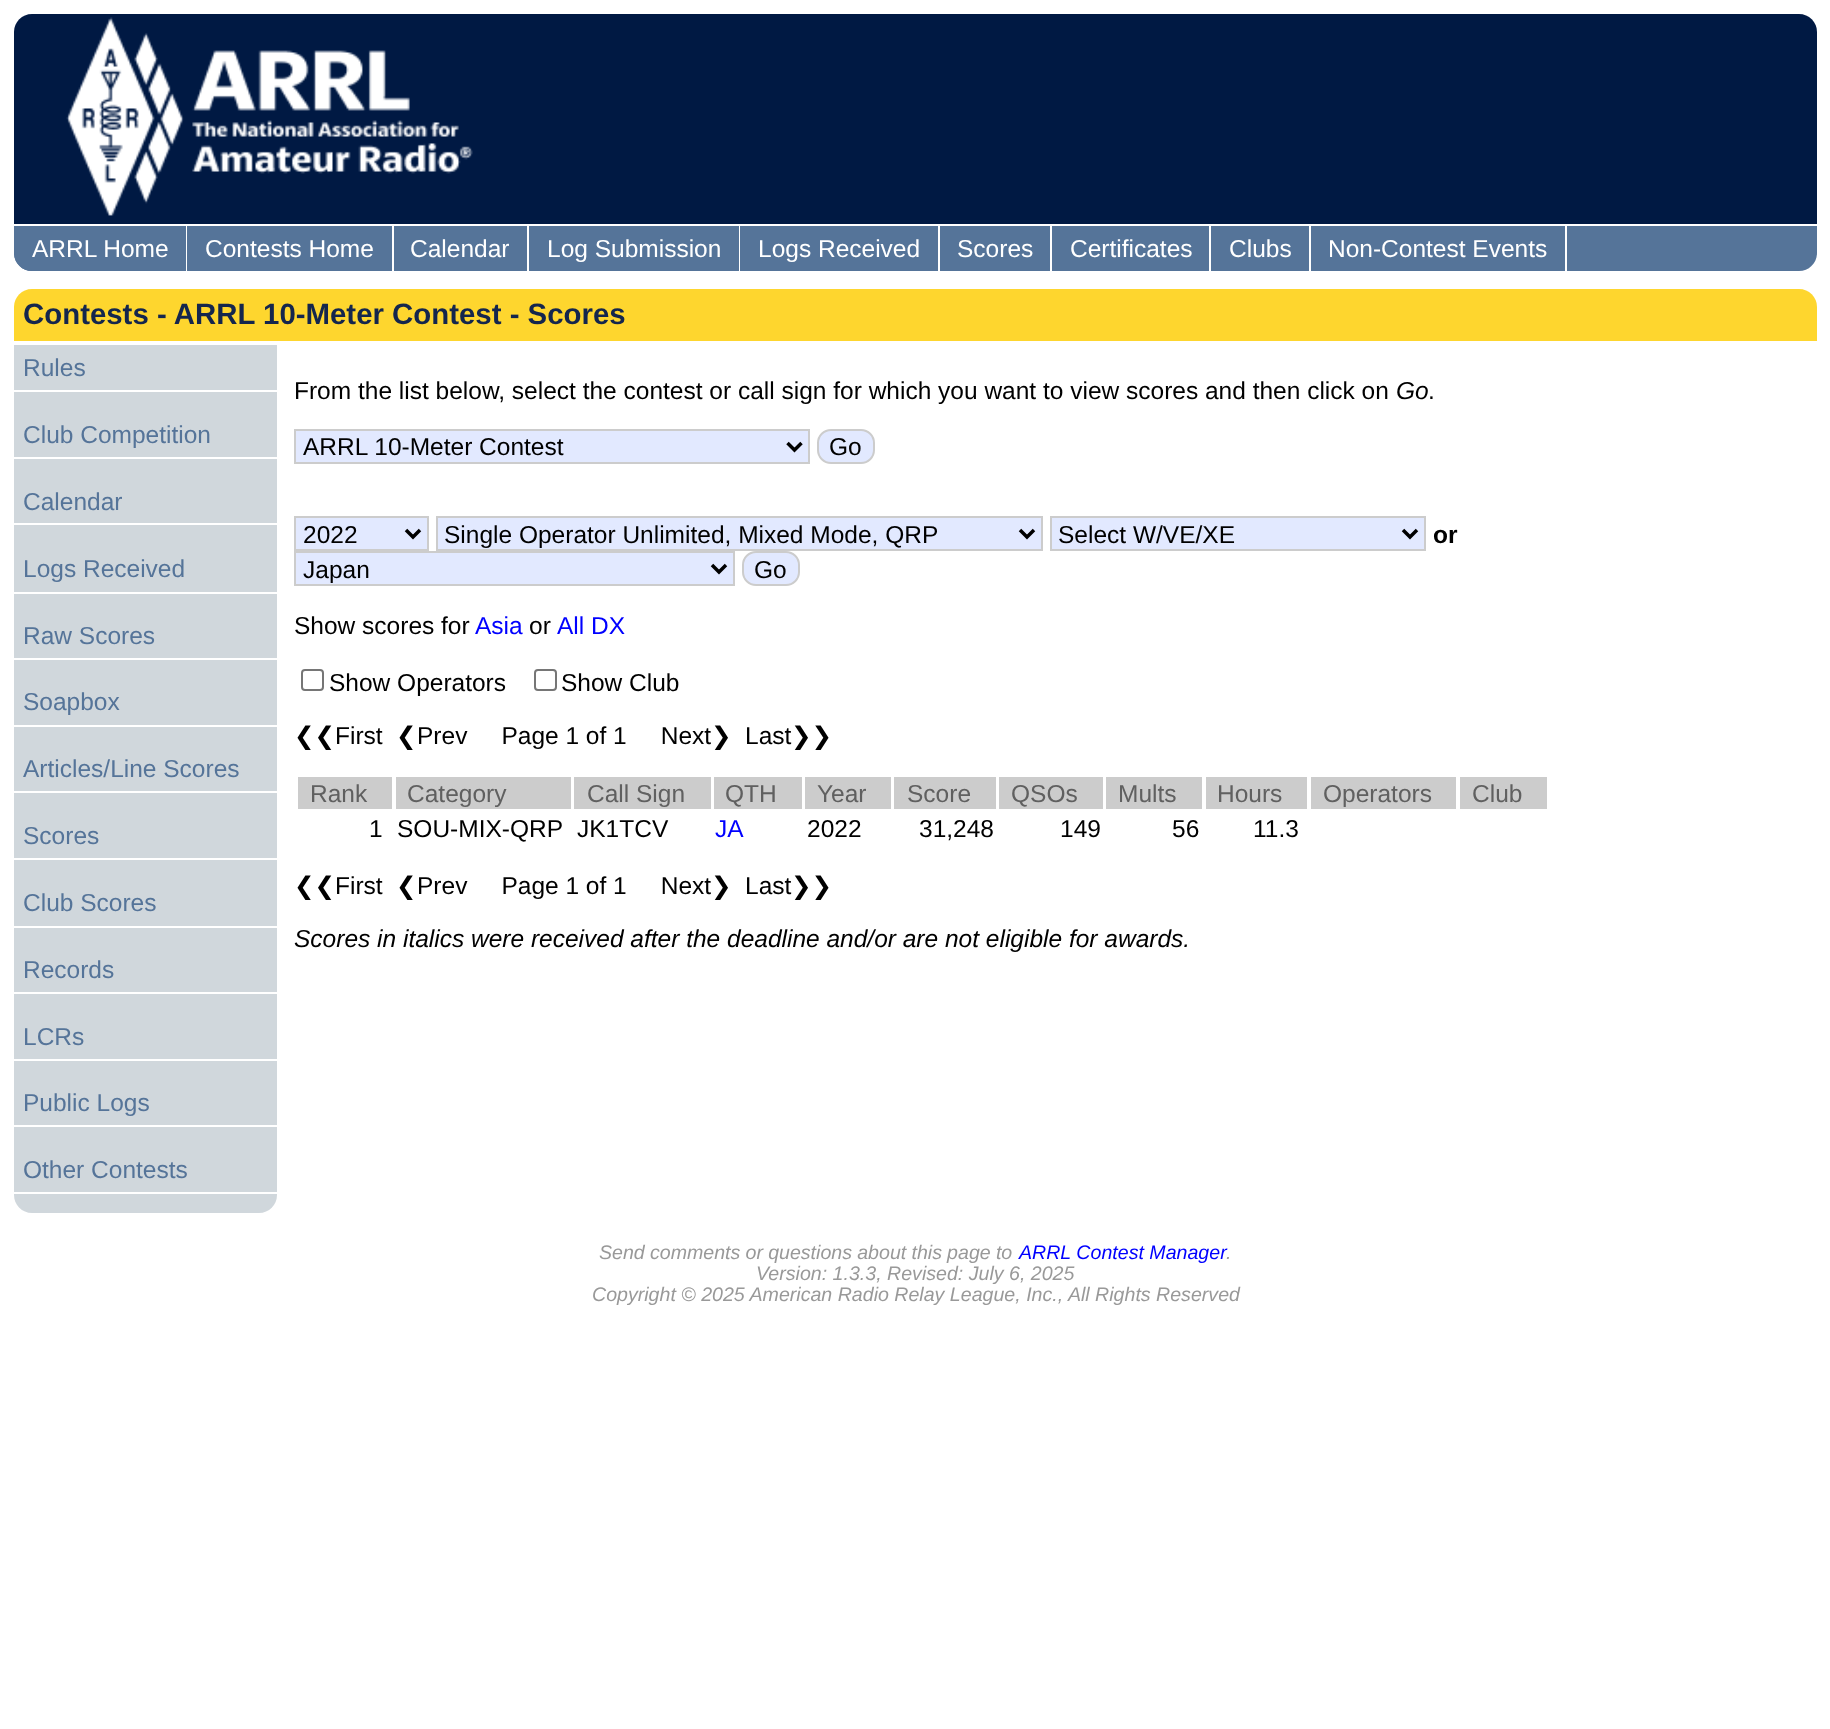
<svg xmlns="http://www.w3.org/2000/svg" width="1830" height="1729">
<style>
.a{font:24.5px Liberation Sans;fill:#fff}
.b{font:bold 29.4px Liberation Sans;fill:#14264d}
.c{font:24.5px Liberation Sans;fill:#557499}
.d{font:24.5px Liberation Sans;fill:#000}
.e{font:italic 24.5px Liberation Sans;fill:#000}
.f{font:bold 24.5px Liberation Sans;fill:#000}
.g{font:24.5px Liberation Sans;fill:#00f}
.h{font:24.5px DejaVu Sans;fill:#000}
.i{font:24.5px Liberation Sans;fill:#606060}
.j{font:italic 19.6px Liberation Sans;fill:#999}
.k{font:italic 19.6px Liberation Sans;fill:#00f}
</style>
<rect width="100%" height="100%" fill="#fff"/>
<path fill="#001943" d="M32 14h1767c10 0 18 8 18 18v192h-1803v-192c0-10 8-18 18-18z"/>
<image href="1.png" x="66" y="17" width="407" height="199"/>
<path fill="#557499" d="M14 226h1803v27c0 10-8 18-18 18h-1767c-10 0-18-8-18-18z"/>
<path fill="#557499" d="M14 226h173v45h-155c-10 0-18-8-18-18z"/>
<path fill="#fff" d="M186 226h1v45H186z"/>
<path fill="#fff" d="M392 226h2v45H392z"/>
<path fill="#fff" d="M527 226h2v45H527z"/>
<path fill="#fff" d="M739 226h1v45H739z"/>
<path fill="#fff" d="M938 226h2v45H938z"/>
<path fill="#fff" d="M1050 226h2v45H1050z"/>
<path fill="#fff" d="M1209 226h2v45H1209z"/>
<path fill="#fff" d="M1309 226h2v45H1309z"/>
<path fill="#fff" d="M1565 226h2v45H1565z"/>
<path fill="#fed62e" d="M32 289h1767c10 0 18 8 18 18v34h-1803v-34c0-10 8-18 18-18z"/>
<path fill="#d0d7dc" d="M14 345h263v850c0 10-8 18-18 18h-227c-10 0-18-8-18-18z"/>
<path fill="#fff" d="M14 390h263v2H14z"/>
<path fill="#fff" d="M14 457h263v2H14z"/>
<path fill="#fff" d="M14 523h263v2H14z"/>
<path fill="#fff" d="M14 592h263v2H14z"/>
<path fill="#fff" d="M14 658h263v2H14z"/>
<path fill="#fff" d="M14 725h263v2H14z"/>
<path fill="#fff" d="M14 791h263v2H14z"/>
<path fill="#fff" d="M14 858h263v2H14z"/>
<path fill="#fff" d="M14 926h263v2H14z"/>
<path fill="#fff" d="M14 992h263v2H14z"/>
<path fill="#fff" d="M14 1059h263v2H14z"/>
<path fill="#fff" d="M14 1125h263v2H14z"/>
<path fill="#fff" d="M14 1192h263v2H14z"/>
<path fill="#e2e9ff" stroke="#ccc" stroke-width="2" d="M295 430h514v33H295z"/>
<path fill="none" stroke="#000" stroke-width="3.5" d="M787.5 443l7 7l7-7"/>
<rect fill="#e2e9ff" stroke="#ccc" stroke-width="2" x="818" y="430" width="56" height="33" rx="13"/>
<path fill="#e2e9ff" stroke="#ccc" stroke-width="2" d="M295 517h133v33H295z"/>
<path fill="none" stroke="#000" stroke-width="3.5" d="M406 530l7 7l7-7"/>
<path fill="#e2e9ff" stroke="#ccc" stroke-width="2" d="M437 517h605v33H437z"/>
<path fill="none" stroke="#000" stroke-width="3.5" d="M1020 530l7 7l7-7"/>
<path fill="#e2e9ff" stroke="#ccc" stroke-width="2" d="M1051 517h374v33H1051z"/>
<path fill="none" stroke="#000" stroke-width="3.5" d="M1403 530l7 7l7-7"/>
<path fill="#e2e9ff" stroke="#ccc" stroke-width="2" d="M295 552h439v33H295z"/>
<path fill="none" stroke="#000" stroke-width="3.5" d="M712 565l7 7l7-7"/>
<rect fill="#e2e9ff" stroke="#ccc" stroke-width="2" x="743" y="552" width="56" height="33" rx="13"/>
<rect fill="none" stroke="#767676" stroke-width="2" x="302" y="670" width="21" height="20" rx="3"/>
<rect fill="none" stroke="#767676" stroke-width="2" x="535" y="670" width="21" height="20" rx="3"/>
<path fill="#ccc" d="M298 777h94v32H298z"/>
<path fill="#ccc" d="M396 777h175v32H396z"/>
<path fill="#ccc" d="M574 777h137v32H574z"/>
<path fill="#ccc" d="M714 777h88v32H714z"/>
<path fill="#ccc" d="M805 777h86v32H805z"/>
<path fill="#ccc" d="M894 777h102v32H894z"/>
<path fill="#ccc" d="M999 777h104v32H999z"/>
<path fill="#ccc" d="M1106 777h96v32H1106z"/>
<path fill="#ccc" d="M1206 777h101v32H1206z"/>
<path fill="#ccc" d="M1311 777h145v32H1311z"/>
<path fill="#ccc" d="M1460 777h87v32H1460z"/>
<text class="a" x="32" y="257">ARRL Home</text>
<text class="a" x="205" y="257">Contests Home</text>
<text class="a" x="410" y="257">Calendar</text>
<text class="a" x="547" y="257">Log Submission</text>
<text class="a" x="758" y="257">Logs Received</text>
<text class="a" x="957" y="257">Scores</text>
<text class="a" x="1070" y="257">Certificates</text>
<text class="a" x="1229" y="257">Clubs</text>
<text class="a" x="1328" y="257">Non-Contest Events</text>
<text class="b" x="23" y="324">Contests - ARRL 10-Meter Contest - Scores</text>
<text class="c" x="23" y="376">Rules</text>
<text class="c" x="23" y="443">Club Competition</text>
<text class="c" x="23" y="510">Calendar</text>
<text class="c" x="23" y="577">Logs Received</text>
<text class="c" x="23" y="644">Raw Scores</text>
<text class="c" x="23" y="710">Soapbox</text>
<text class="c" x="23" y="777">Articles/Line Scores</text>
<text class="c" x="23" y="844">Scores</text>
<text class="c" x="23" y="911">Club Scores</text>
<text class="c" x="23" y="978">Records</text>
<text class="c" x="23" y="1045">LCRs</text>
<text class="c" x="23" y="1111">Public Logs</text>
<text class="c" x="23" y="1178">Other Contests</text>
<text class="d" x="294" y="399">From the list below, select the contest or call sign for which you want to view scores and then click on</text>
<text class="e" x="1396" y="399">Go</text>
<text class="d" x="1428" y="399">.</text>
<text class="d" x="303" y="455">ARRL 10-Meter Contest</text>
<text class="d" x="829" y="455">Go</text>
<text class="d" x="303" y="543">2022</text>
<text class="d" x="444" y="543">Single Operator Unlimited, Mixed Mode, QRP</text>
<text class="d" x="1058" y="543">Select W/VE/XE</text>
<text class="f" x="1433" y="543">or</text>
<text class="d" x="303" y="578">Japan</text>
<text class="d" x="754" y="578">Go</text>
<text class="d" x="294" y="634">Show scores for</text>
<text class="g" x="475" y="634">Asia</text>
<text class="d" x="529" y="634">or</text>
<text class="g" x="557" y="634">All DX</text>
<text class="d" x="329" y="691">Show Operators</text>
<text class="d" x="561" y="691">Show Club</text>
<text class="h" x="294" y="744">❮❮</text>
<text class="d" x="335" y="744">First</text>
<text class="h" x="396" y="744">❮</text>
<text class="d" xml:space="preserve" x="417" y="744">Prev     Page 1 of 1     Next</text>
<text class="h" x="711" y="744">❯</text>
<text class="d" x="745" y="744">Last</text>
<text class="h" x="791" y="744">❯❯</text>
<text class="i" x="310" y="802">Rank</text>
<text class="i" x="407" y="802">Category</text>
<text class="i" x="587" y="802">Call Sign</text>
<text class="i" x="725" y="802">QTH</text>
<text class="i" x="817" y="802">Year</text>
<text class="i" x="907" y="802">Score</text>
<text class="i" x="1011" y="802">QSOs</text>
<text class="i" x="1118" y="802">Mults</text>
<text class="i" x="1217" y="802">Hours</text>
<text class="i" x="1323" y="802">Operators</text>
<text class="i" x="1472" y="802">Club</text>
<text class="d" x="369" y="837">1</text>
<text class="d" x="397" y="837">SOU-MIX-QRP</text>
<text class="d" x="577" y="837">JK1TCV</text>
<text class="g" x="715" y="837">JA</text>
<text class="d" x="807" y="837">2022</text>
<text class="d" x="919" y="837">31,248</text>
<text class="d" x="1060" y="837">149</text>
<text class="d" x="1172" y="837">56</text>
<text class="d" x="1253" y="837">11.3</text>
<text class="h" x="294" y="894">❮❮</text>
<text class="d" x="335" y="894">First</text>
<text class="h" x="396" y="894">❮</text>
<text class="d" xml:space="preserve" x="417" y="894">Prev     Page 1 of 1     Next</text>
<text class="h" x="711" y="894">❯</text>
<text class="d" x="745" y="894">Last</text>
<text class="h" x="791" y="894">❯❯</text>
<text class="e" x="294" y="947">Scores in italics were received after the deadline and/or are not eligible for awards.</text>
<text class="j" x="599" y="1259" word-spacing="-0.25">Send comments or questions about this page to</text>
<text class="k" x="1019" y="1259">ARRL Contest Manager</text>
<text class="j" x="1226" y="1259">.</text>
<text class="j" x="756" y="1280">Version: 1.3.3, Revised: July 6, 2025</text>
<text class="j" x="592" y="1301">Copyright © 2025 American Radio Relay League, Inc., All Rights Reserved</text>
</svg>
